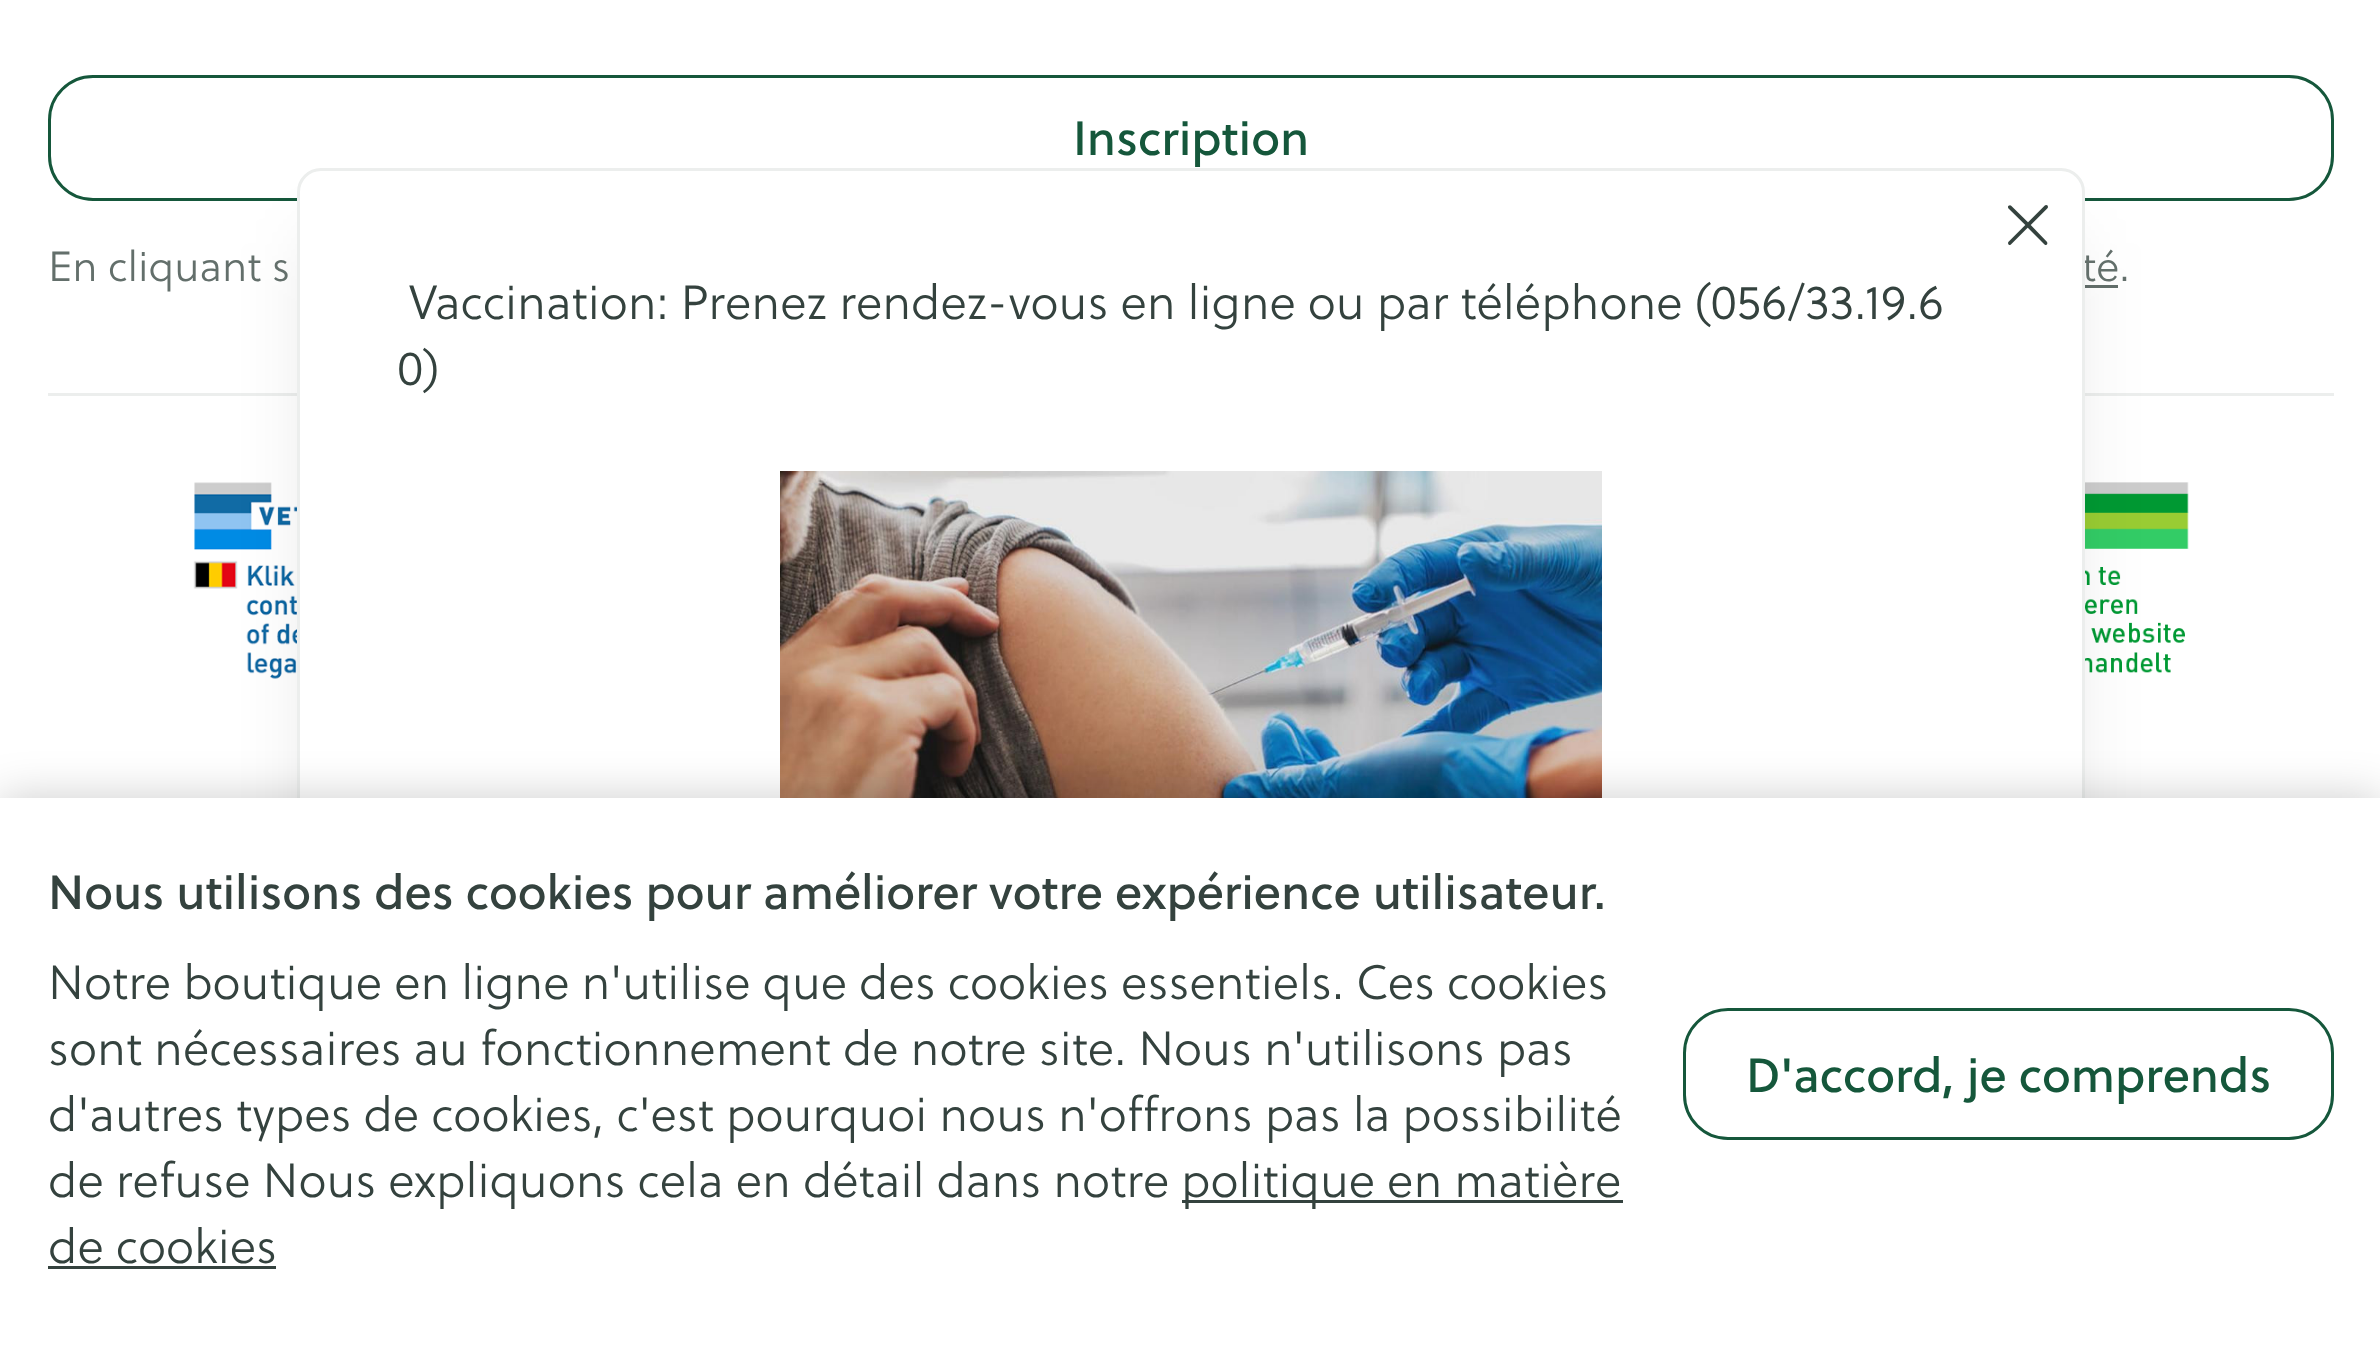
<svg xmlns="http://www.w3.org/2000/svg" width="2380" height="1349">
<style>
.a{font:48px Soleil;fill:#15573b}
.b{font:300 42px Soleil;fill:#636f6b}
.c{font:300 48px Soleil;fill:#34423e}
.d{font:48px Soleil;fill:#34423e}
</style>
<rect width="100%" height="100%" fill="#fff"/>
<rect fill="none" stroke="#15573b" stroke-width="3" x="49.5" y="76.5" width="2283" height="123" rx="43.5"/>
<path fill="#636f6b" d="M2085 285h33v3H2085z"/>
<path fill="#eceeed" d="M48 393h2286v3H48z"/>
<image href="1.png" x="193" y="482" width="104" height="197"/>
<image href="2.png" x="2085" y="482" width="104" height="196"/>
<rect fill="#0000001a" filter="blur(37.5px)" x="312" y="243" width="1758" height="984" rx="9"/>
<text class="a" x="1073" y="155">Inscription</text>
<text class="b" x="48" y="281">En cliquant s</text>
<text class="b" x="2082" y="281">té.</text>
<rect fill="#fff" stroke="#eceeed" stroke-width="3" x="298.5" y="169.5" width="1785" height="1011" rx="22.5"/>
<image href="3.png" x="2008" y="205" width="40" height="41"/>
<text class="c" x="409" y="319">Vaccination: Prenez rendez-vous en ligne ou par téléphone (056/33.19.6</text>
<text class="c" x="397" y="385">0)</text>
<image href="4.png" x="780" y="471" width="822" height="327"/>
<path fill="#00000033" filter="blur(22.5px)" d="M0 798h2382v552H0z"/>
<path fill="#fff" d="M0 798h2380v551H0z"/>
<text class="d" x="48" y="909">Nous utilisons des cookies pour améliorer votre expérience utilisateur.</text>
<text class="c" x="48" y="999">Notre boutique en ligne n'utilise que des cookies essentiels. Ces cookies</text>
<text class="c" x="48" y="1065">sont nécessaires au fonctionnement de notre site. Nous n'utilisons pas</text>
<text class="c" x="48" y="1131">d'autres types de cookies, c'est pourquoi nous n'offrons pas la possibilité</text>
<text class="c" x="48" y="1197">de refuse Nous expliquons cela en détail dans notre</text>
<path fill="#34423e" d="M1182 1200h441v3H1182z"/>
<text class="c" x="1181" y="1197">politique en matière</text>
<text class="c" x="48" y="1263">de cookies</text>
<path fill="#34423e" d="M48 1266h228v3H48z"/>
<rect fill="none" stroke="#15573b" stroke-width="3" x="1684.5" y="1009.5" width="648" height="129" rx="43.5"/>
<text class="a" x="1746" y="1092">D'accord, je comprends</text>
</svg>
